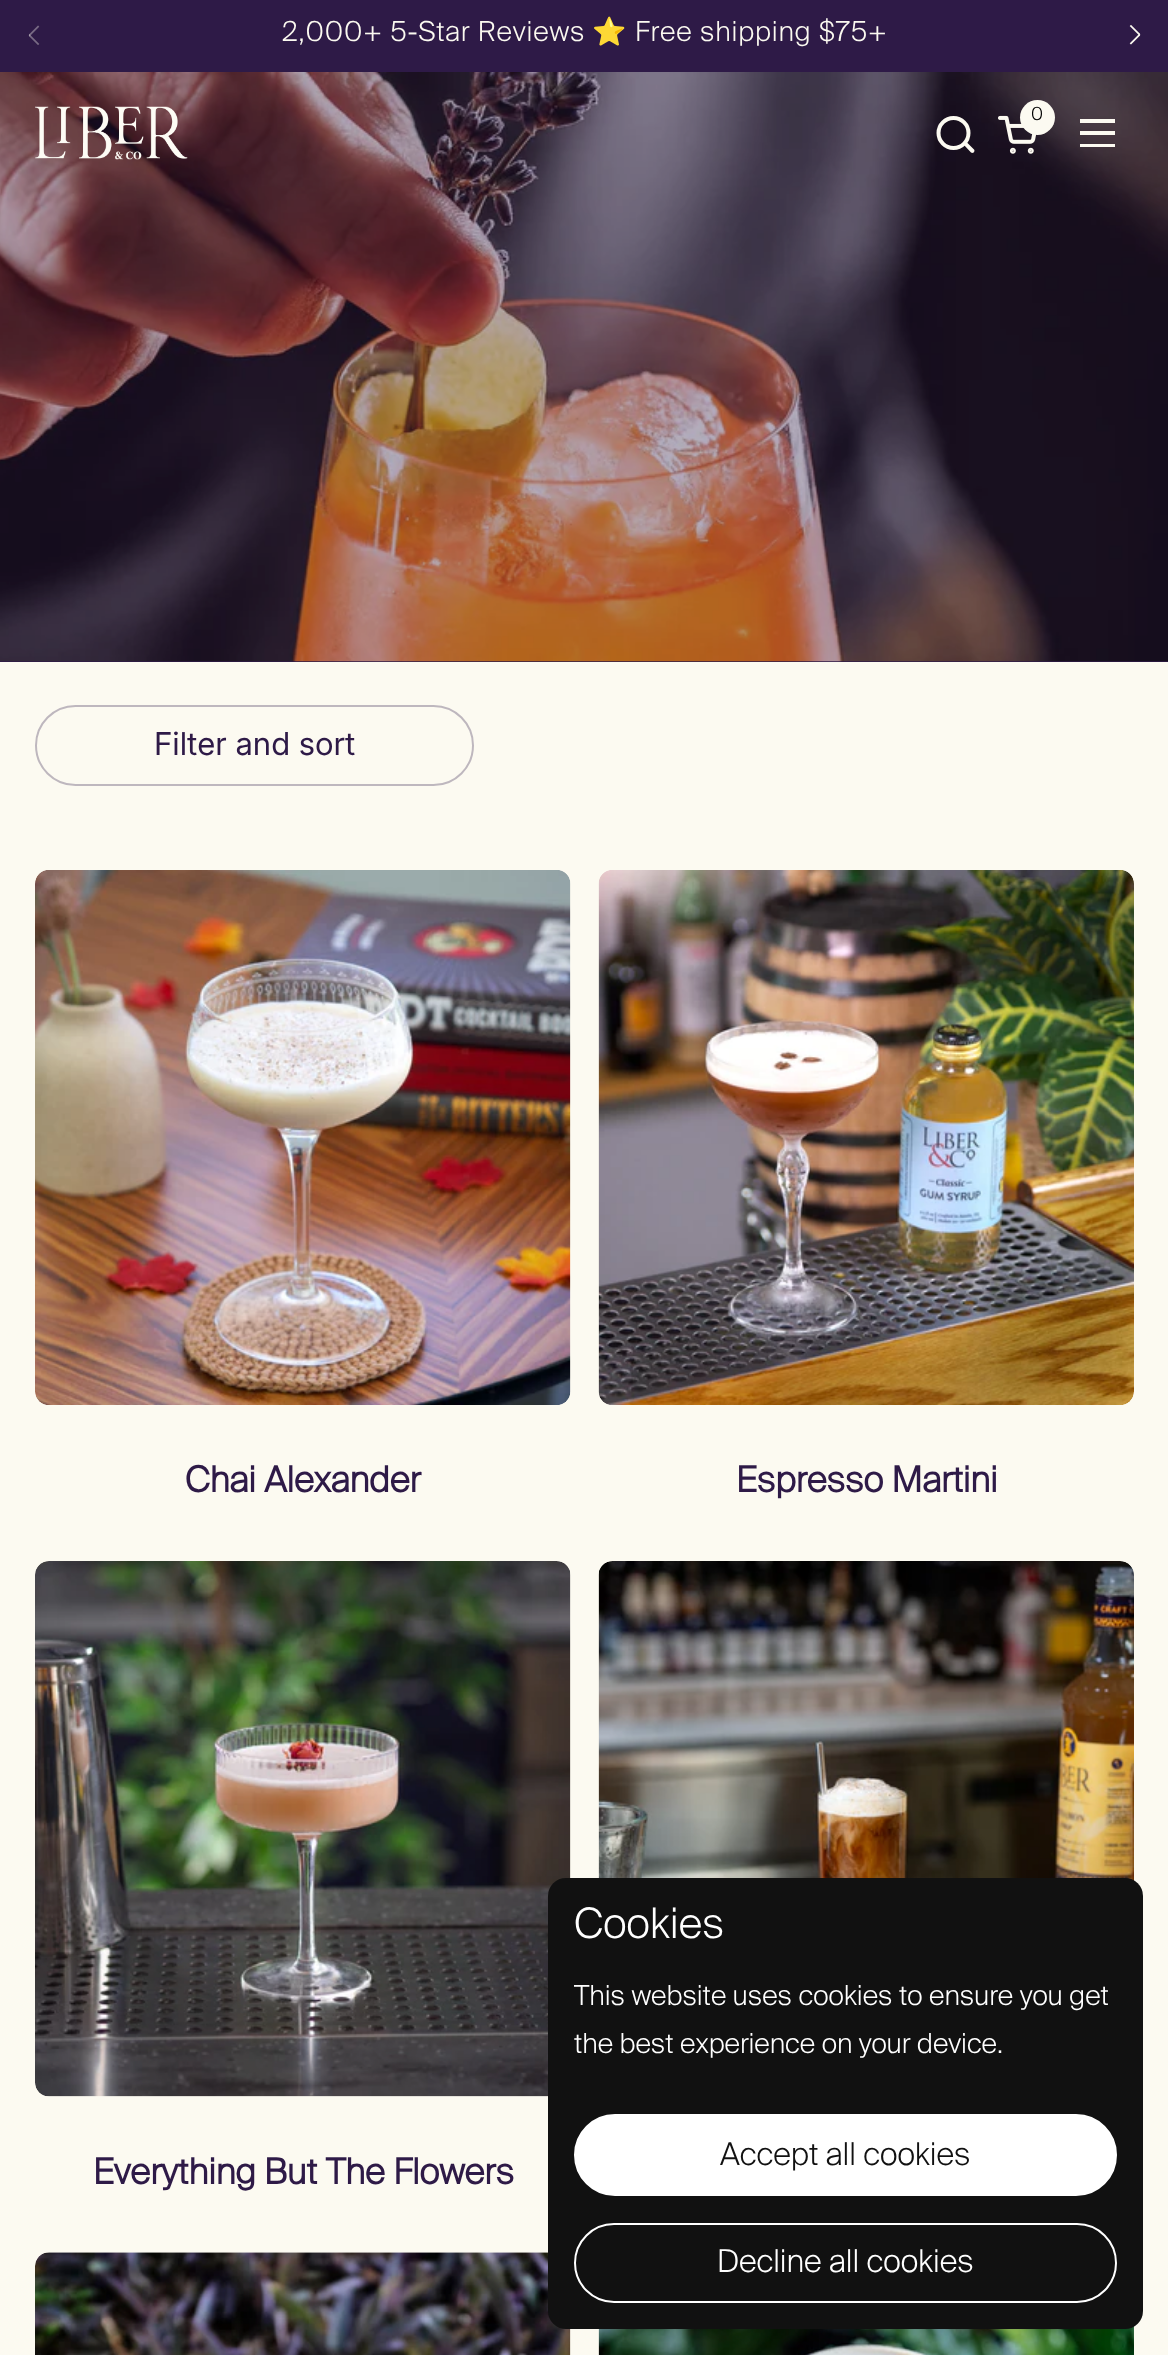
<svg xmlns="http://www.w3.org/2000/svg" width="1168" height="2355">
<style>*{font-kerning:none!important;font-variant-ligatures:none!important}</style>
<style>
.a{font:300 27.6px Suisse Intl;letter-spacing:0.9px;fill:#fcfaf1}
.b{font:27.6px Noto Color Emoji;letter-spacing:0.9px;fill:#fcfaf1}
.c{font:300 18px Suisse Intl;fill:#000}
.d{font:31.5px Inter;fill:#2e1a47}
.e{font:bold 35.5px Suisse Intl;fill:#2e1a47}
.f{font:300 42px Suisse Intl;fill:#fff}
.g{font:300 27.6px Suisse Intl;fill:#fff}
.h{font:300 31.5px Suisse Intl;fill:#111}
.i{font:300 31.5px Suisse Intl;fill:#fff}
</style>
<rect width="100%" height="100%" fill="#fcfaf1"/>
<path fill="#2e1a47" d="M0 0h1168v72H0z"/>
<image href="1.png" x="28" y="25" width="12" height="20"/>
<image href="2.png" x="1129" y="25" width="12" height="20"/>
<path fill="#2e1a47" d="M0 661h1168v1H0z"/>
<image href="5.png" x="0" y="72" width="1168" height="590"/>
<image href="3.png" x="35" y="106" width="153" height="54"/>
<circle fill="#fcfaf1" cx="1037.5" cy="117.5" r="17.5"/>
<circle fill="none" stroke="#fcfaf1" stroke-width="4" cx="953.5" cy="133" r="15"/>
<path fill="#fcfaf1" d="M967 142.5l-1.5-1.5l-3 3l1.5 1zm4 10c2 1.5 4.5-1 3-3zm-7-7.5l7 7.5l3-3l-7-7z"/>
<path fill="#fcfaf1" d="M1080 119h35v4H1080z"/>
<path fill="#fcfaf1" d="M1080 131h35v4H1080z"/>
<path fill="#fcfaf1" d="M1080 144h35v3H1080z"/>
<rect fill="none" stroke="#beb7be" stroke-width="2" x="36" y="706" width="437" height="79" rx="39.5"/>
<image href="6.png" x="35" y="870" width="536" height="535"/>
<image href="7.png" x="598" y="870" width="536" height="535"/>
<image href="8.png" x="598" y="1561" width="536" height="320"/>
<image href="9.png" x="35" y="1561" width="536" height="536"/>
<image href="10.png" x="35" y="2252" width="536" height="103"/>
<image href="11.png" x="598" y="2326" width="536" height="29"/>
<rect fill="#111" x="548" y="1878" width="595" height="451" rx="18"/>
<rect fill="#fff" stroke="#fff" stroke-width="2" x="575" y="2115" width="541" height="80" rx="40"/>
<rect fill="none" stroke="#fff" stroke-width="2" x="575" y="2224" width="541" height="78" rx="39"/>
<text class="a" x="282" y="41">2,000+ 5-Star Reviews</text>
<text class="b" x="592" y="41">⭐</text>
<text class="a" x="635" y="41">Free shipping $75+</text>
<text class="c" x="1031" y="120">0</text>
<image href="4.png" x="998" y="115" width="38" height="39"/>
<text class="d" x="154" y="755">Filter and sort</text>
<text class="e" x="185" y="1492">Chai Alexander</text>
<text class="e" x="736" y="1492">Espresso Martini</text>
<text class="e" x="93" y="2184">Everything But The Flowers</text>
<text class="f" x="574" y="1938">Cookies</text>
<text class="g" x="574" y="2005">This website uses cookies to ensure you get</text>
<text class="g" x="574" y="2053">the best experience on your device.</text>
<text class="h" x="720" y="2165">Accept all cookies</text>
<text class="i" x="717" y="2272">Decline all cookies</text>
</svg>
